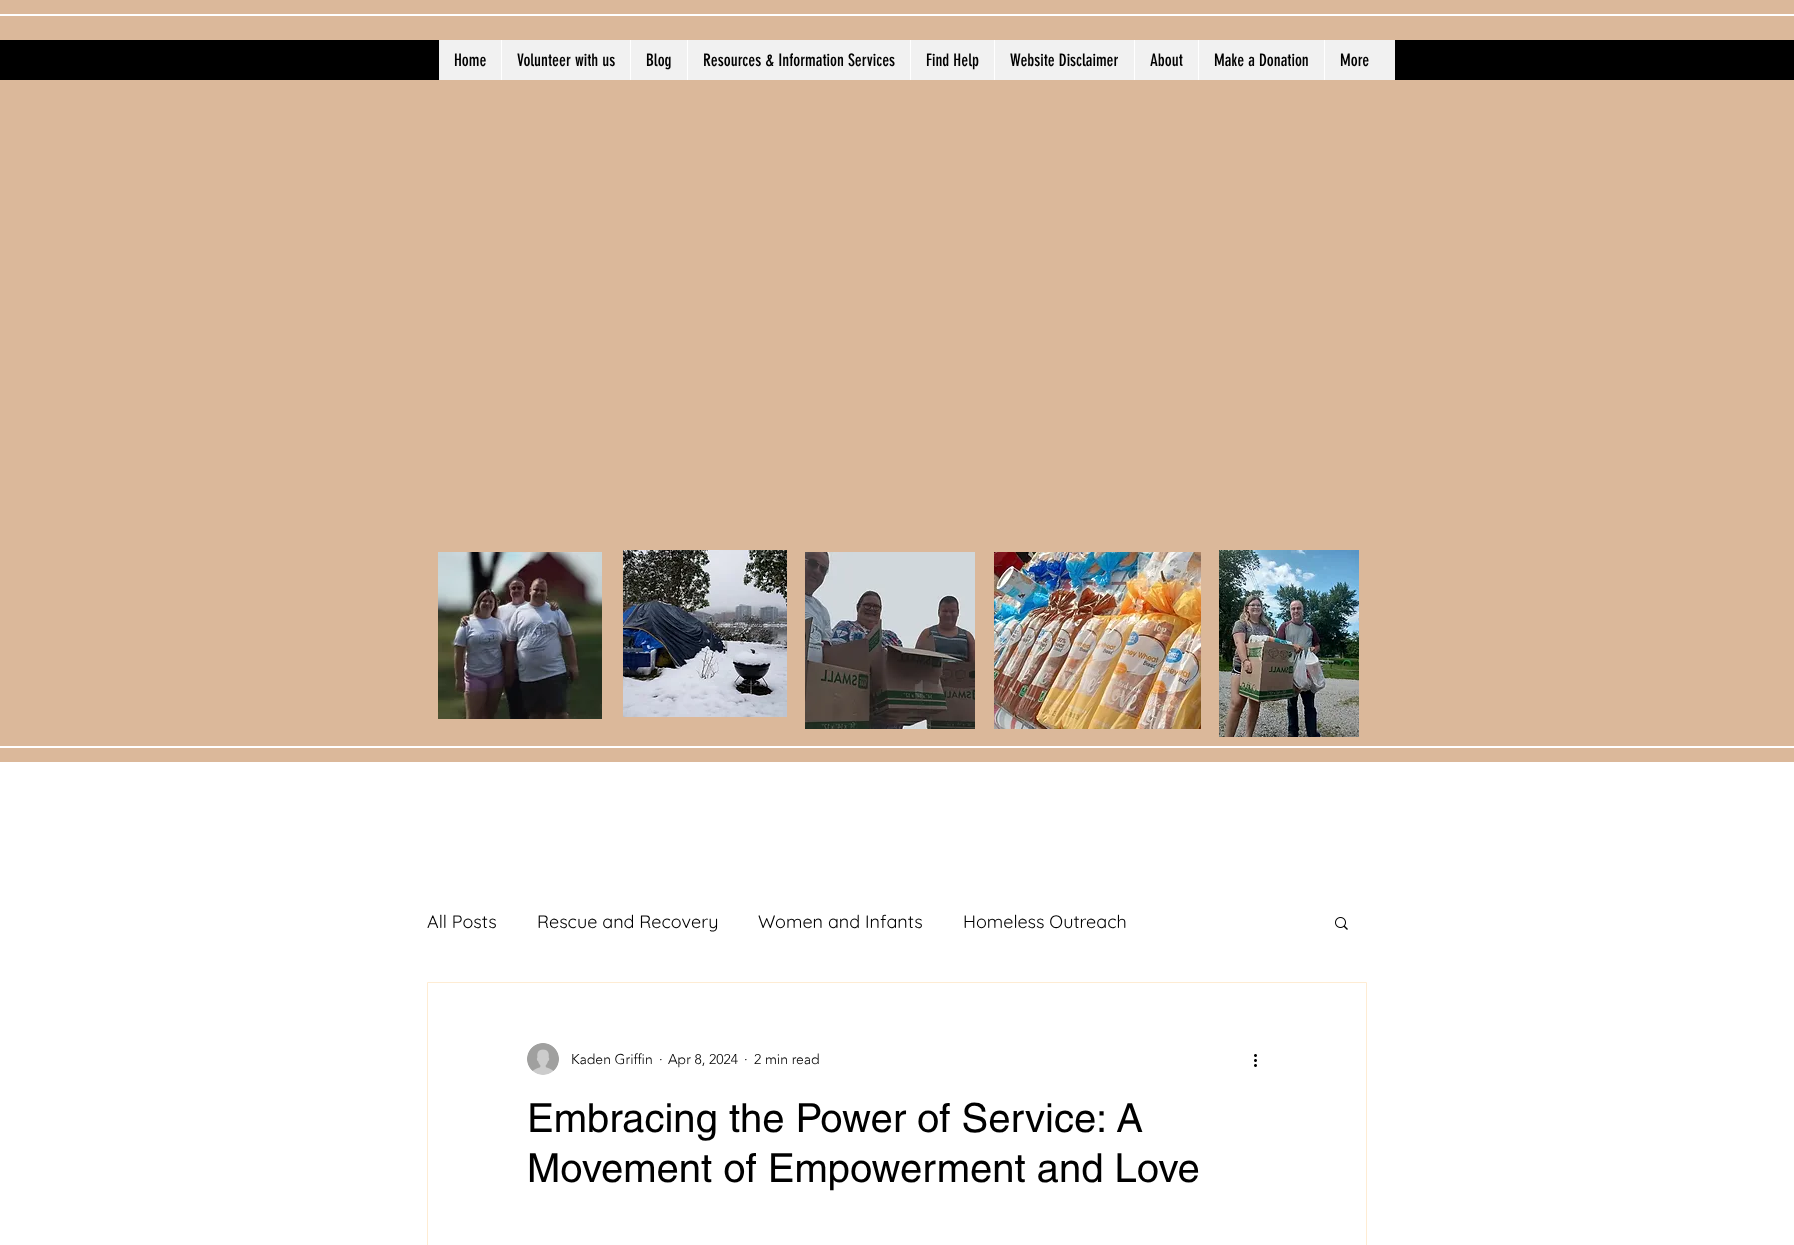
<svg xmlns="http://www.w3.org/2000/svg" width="1794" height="1245">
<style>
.a{font:17px 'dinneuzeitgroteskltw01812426';fill:#000}
.b{font:18px Quicksand;fill:#000}
.c{font:300 14px 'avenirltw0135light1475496';fill:#000}
.d{font:40px helvetica;fill:#000}
</style>
<rect width="100%" height="100%" fill="#fff"/>
<path fill="#dbb89a" d="M0 0h1794v762H0z"/>
<path fill="#fff" d="M0 14h1794v2H0z"/>
<path fill="#fff" d="M0 746h1794v2H0z"/>
<path fill="#000" d="M0 40h1794v40H0z"/>
<path fill="#f1f1f1" d="M439 40h956v40H439z"/>
<path fill="#fff" d="M501 40h1v40H501z"/>
<path fill="#fff" d="M630 40h1v40H630z"/>
<path fill="#fff" d="M687 40h1v40H687z"/>
<path fill="#fff" d="M910 40h1v40H910z"/>
<path fill="#fff" d="M994 40h1v40H994z"/>
<path fill="#fff" d="M1134 40h1v40H1134z"/>
<path fill="#fff" d="M1198 40h1v40H1198z"/>
<path fill="#fff" d="M1324 40h1v40H1324z"/>
<image href="1.png" x="438" y="552" width="164" height="167"/>
<image href="2.png" x="623" y="550" width="164" height="167"/>
<image href="3.png" x="805" y="552" width="170" height="177"/>
<image href="4.png" x="994" y="552" width="207" height="177"/>
<image href="5.png" x="1219" y="550" width="140" height="187"/>
<image href="6.png" x="1335" y="917" width="13" height="13"/>
<path fill="none" stroke="#feecd3" d="M427.5 982.5h939v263H427.5z"/>
<image href="7.png" x="527" y="1043" width="32" height="32"/>
<image href="8.png" x="1254" y="1054" width="3" height="13"/>
<text class="a" x="454" y="66">Home</text>
<text class="a" x="517" y="66">Volunteer with us</text>
<text class="a" x="646" y="66">Blog</text>
<text class="a" x="703" y="66">Resources &amp; Information Services</text>
<text class="a" x="926" y="66">Find Help</text>
<text class="a" x="1010" y="66">Website Disclaimer</text>
<text class="a" x="1150" y="66">About</text>
<text class="a" x="1214" y="66">Make a Donation</text>
<text class="a" x="1340" y="66">More</text>
<text class="b" x="427" y="928">All Posts</text>
<text class="b" x="537" y="928">Rescue and Recovery</text>
<text class="b" x="758" y="928">Women and Infants</text>
<text class="b" x="963" y="928">Homeless Outreach</text>
<text class="c" x="571" y="1064">Kaden Griffin</text>
<text class="c" x="659" y="1064">·</text>
<text class="c" x="668" y="1064">Apr 8, 2024</text>
<text class="c" x="744" y="1064">·</text>
<text class="c" x="754" y="1064">2 min read</text>
<text class="d" x="527" y="1132">Embracing the Power of Service: A</text>
<text class="d" x="527" y="1182">Movement of Empowerment and Love</text>
</svg>
